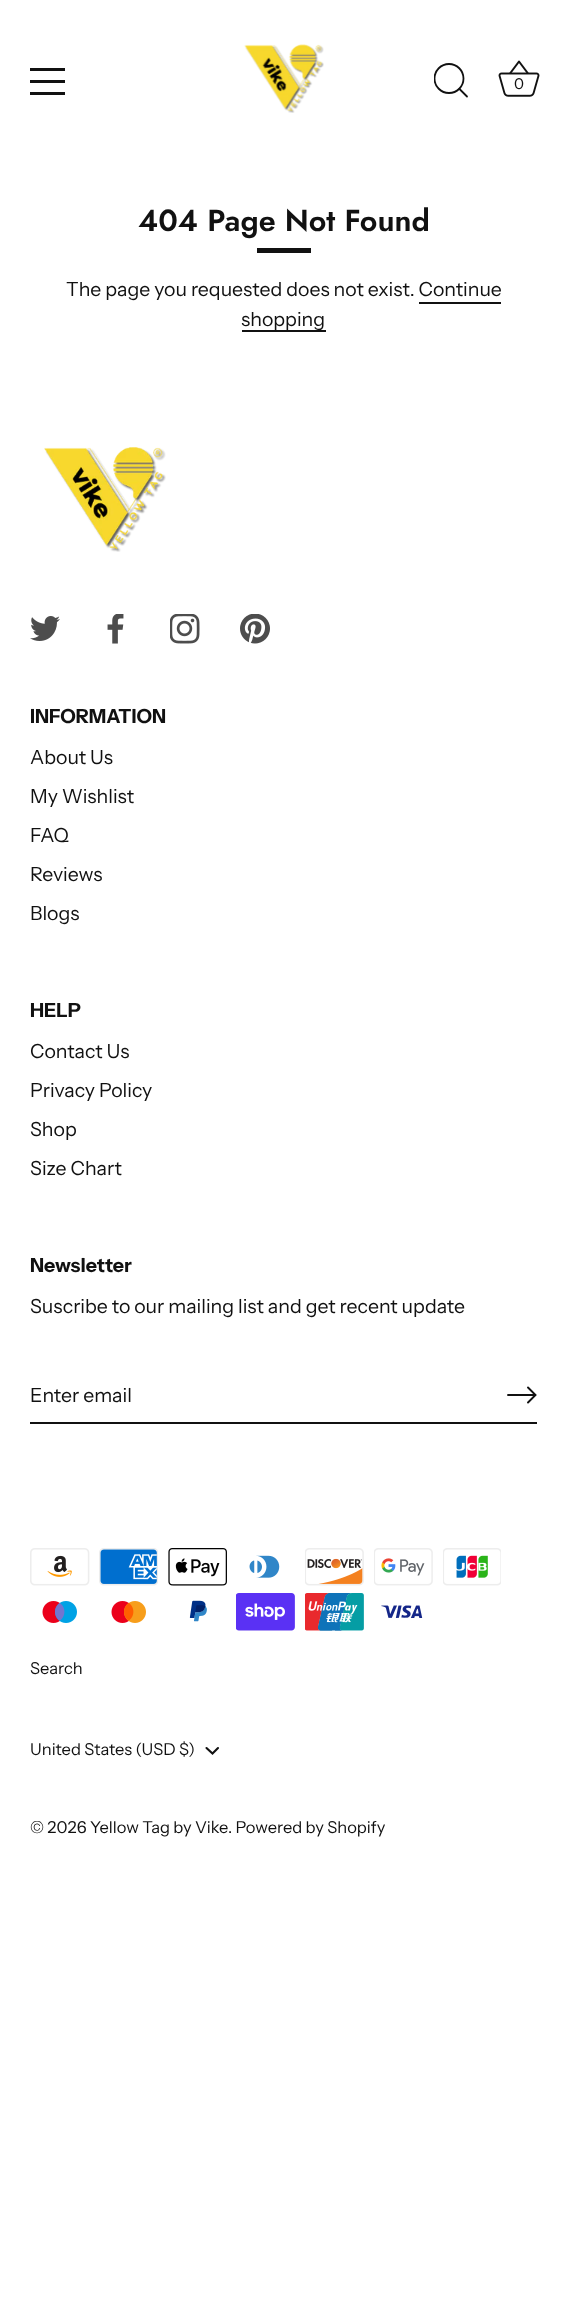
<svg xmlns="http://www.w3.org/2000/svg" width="566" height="2321">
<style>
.a{font:15px Instrument Sans;fill:#111}
.b{font:600 30.5px Jost;fill:#111}
.c{font:19.5px Instrument Sans;fill:#111}
.d{font:bold 19.5px Instrument Sans;fill:#111}
.e{font:16.5px Instrument Sans;fill:#111}
</style>
<defs>
<clipPath id="clip1"><path d="M434 63h36v36H434z"/></clipPath>
</defs>
<rect width="100%" height="100%" fill="#fff"/>
<path fill="#111" d="M30 68h35v3H30z"/>
<path fill="#111" d="M30 80h35v3H30z"/>
<path fill="#111" d="M30 92h35v3H30z"/>
<image href="1.png" x="244" y="44" width="80" height="69"/>
<g clip-path="url(#clip1)">
<circle fill="none" stroke="#111" stroke-width="1.8" cx="449" cy="78.5" r="14.5"/>
</g>
<path fill="none" stroke="#111" stroke-width="1.8" stroke-linecap="round" stroke-linejoin="round" d="M467 96.5l-7.5-7.5"/>
<image href="2.png" x="498" y="60" width="42" height="37"/>
<path fill="#111" d="M257 248h54v5H257z"/>
<path fill="#111" d="M419 302h82v2H419z"/>
<path fill="#111" d="M242 330h84v2H242z"/>
<image href="3.png" x="44" y="447" width="122" height="105"/>
<image href="4.png" x="30" y="616" width="30" height="25"/>
<image href="5.png" x="107" y="614" width="17" height="30"/>
<image href="6.png" x="170" y="614" width="30" height="30"/>
<image href="7.png" x="240" y="614" width="30" height="30"/>
<path fill="#111" d="M30 1422h507v2H30z"/>
<path fill="none" stroke="#111" stroke-width="1.9" stroke-linecap="round" d="M528 1402.5l7.5-7.5l-7.5-7.5"/>
<path fill="none" stroke="#111" stroke-width="1.9" stroke-linecap="round" stroke-linejoin="round" d="M534.5 1395h-26.5"/>
<image href="8.png" x="30" y="1548" width="60" height="38"/>
<image href="9.png" x="99" y="1548" width="59" height="38"/>
<image href="10.png" x="168" y="1548" width="59" height="38"/>
<image href="11.png" x="249" y="1555" width="31" height="23"/>
<image href="12.png" x="305" y="1548" width="59" height="38"/>
<image href="13.png" x="374" y="1548" width="59" height="38"/>
<image href="14.png" x="443" y="1548" width="58" height="38"/>
<image href="15.png" x="42" y="1601" width="35" height="22"/>
<image href="16.png" x="111" y="1601" width="35" height="22"/>
<image href="17.png" x="189" y="1600" width="18" height="22"/>
<image href="18.png" x="236" y="1593" width="59" height="38"/>
<image href="19.png" x="305" y="1593" width="59" height="38"/>
<image href="20.png" x="381" y="1605" width="42" height="13"/>
<path fill="none" stroke="#111" stroke-width="2.1" stroke-linecap="round" d="M206.5 1748l6 5.5l5.5-5.5"/>
<text class="a" x="514" y="89">0</text>
<text class="b" x="138" y="231">404 Page Not Found</text>
<text class="c" x="66" y="296">The page you requested does not exist. Continue</text>
<text class="c" x="241" y="326">shopping</text>
<text class="d" x="30" y="723">INFORMATION</text>
<text class="c" x="30" y="764">About Us</text>
<text class="c" x="30" y="803">My Wishlist</text>
<text class="c" x="30" y="842">FAQ</text>
<text class="c" x="30" y="881">Reviews</text>
<text class="c" x="30" y="920">Blogs</text>
<text class="d" x="30" y="1017">HELP</text>
<text class="c" x="30" y="1058">Contact Us</text>
<text class="c" x="30" y="1097">Privacy Policy</text>
<text class="c" x="30" y="1136">Shop</text>
<text class="c" x="30" y="1175">Size Chart</text>
<text class="d" x="30" y="1272">Newsletter</text>
<text class="c" x="30" y="1313">Suscribe to our mailing list and get recent update</text>
<text class="c" x="30" y="1402">Enter email</text>
<text class="e" x="30" y="1674">Search</text>
<text class="e" x="30" y="1755">United States (USD $)</text>
<text class="e" x="30" y="1833">© 2026</text>
<text class="e" x="90" y="1833">Yellow Tag by Vike</text>
<text class="e" x="228" y="1833">. Powered by Shopify</text>
</svg>
